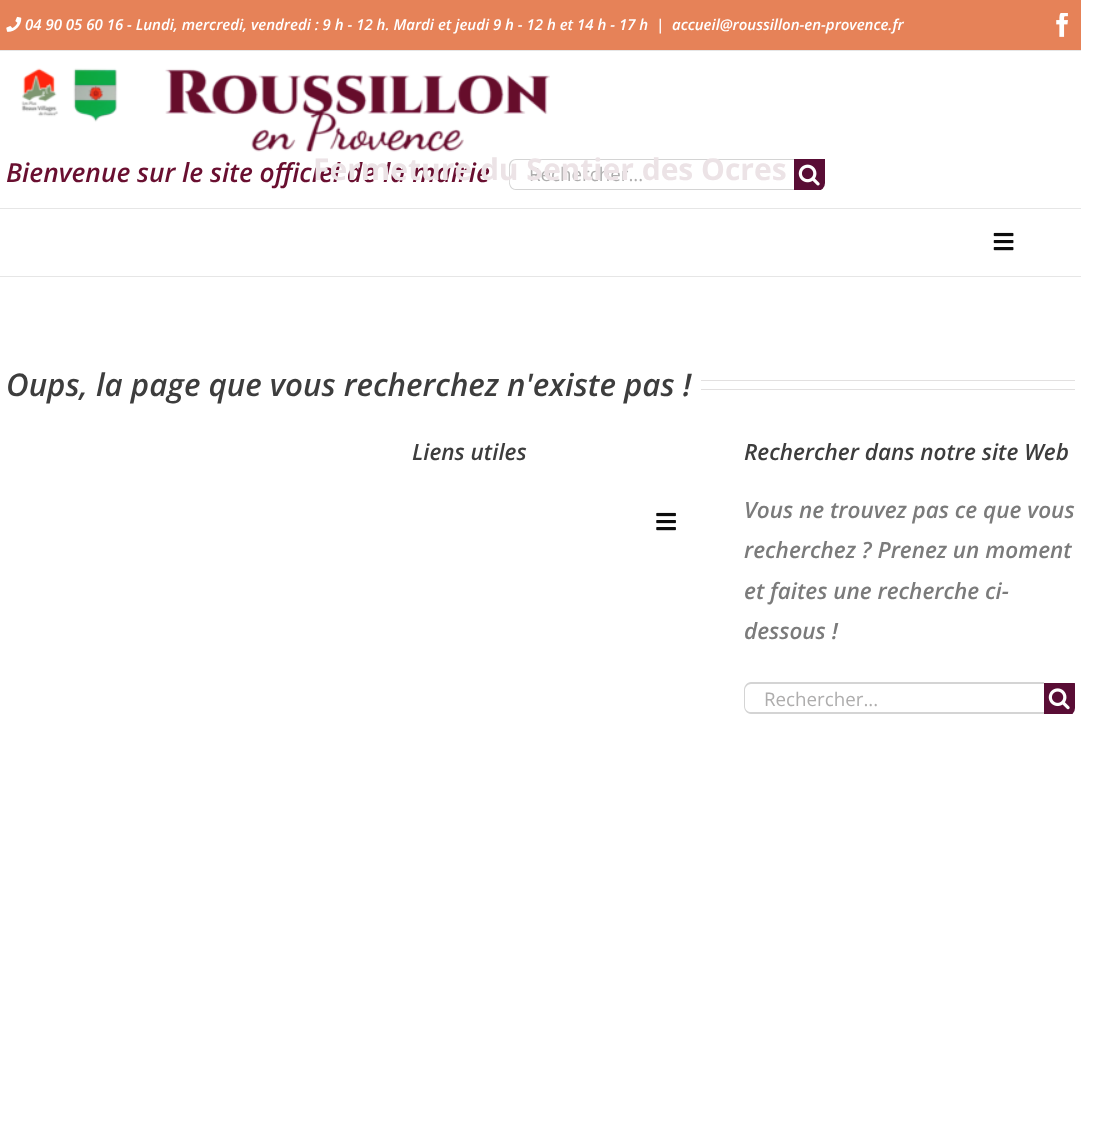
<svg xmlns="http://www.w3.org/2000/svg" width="1099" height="1143">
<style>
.a{font:italic 600 15px Open Sans;fill:#fff}
.b{font:italic 600 26.3px Open Sans;fill:#690f30}
.c{font:18.75px Open Sans;fill:#aeadad}
.d{font:italic 600 31.25px Open Sans;fill:#3d3d3d}
.e{font:italic 600 22.5px Open Sans;fill:#3d3d3d}
.f{font:italic 600 22.5px Open Sans;fill:#7b7b7b}
.g{font:bold 30px Open Sans;fill:#ece3e6}
</style>
<defs>
<clipPath id="clip1"><rect x="509" y="151" width="316" height="40" rx="8"/></clipPath>
<clipPath id="clip2"><rect x="744" y="676" width="331" height="40" rx="8"/></clipPath>
</defs>
<rect width="100%" height="100%" fill="#fff"/>
<path fill="#e68258" d="M0 0h1081v50H0z"/>
<path fill="#e6e6e6" d="M0 50h1081v1H0z"/>
<image href="1.png" x="6" y="16" width="16" height="16"/>
<image href="2.png" x="1056" y="13" width="12" height="24"/>
<path fill="#e6e6e6" d="M0 208h1081v1H0z"/>
<image href="3.png" x="21" y="68" width="529" height="84"/>
<path fill="#d4d4d4" fill-rule="evenodd" d="M516 159h278v31h-278c-4 0-7-3-7-8v-16c0-4 3-7 7-7zm0 1h278v29h-279c-7-2-5-10-5-15c0-5-1-14 6-14z"/>
<g clip-path="url(#clip1)">
<path fill="#590d35" d="M794 159h31v31H794z"/>
</g>
<image href="4.png" x="798" y="164" width="22" height="22"/>
<path fill="#e6e6e6" d="M0 276h1081v1H0z"/>
<image href="5.png" x="993" y="232" width="21" height="19"/>
<path fill="#e2e0e0" d="M701 380h374v1H701z"/>
<path fill="#e2e0e0" d="M701 389h374v1H701z"/>
<image href="6.png" x="656" y="512" width="20" height="19"/>
<path fill="#d4d4d4" fill-rule="evenodd" d="M751 682h293v32h-293c-4 0-7-4-7-8v-16c0-4 3-8 7-8zm0 2h293v28h-293c-3 0-6-2-6-6v-16c0-3 3-6 6-6z"/>
<g clip-path="url(#clip2)">
<path fill="#590d35" d="M1044 683h31v31H1044z"/>
</g>
<image href="7.png" x="1048" y="688" width="22" height="22"/>
<text class="a" x="25" y="30">04 90 05 60 16 - Lundi, mercredi, vendredi : 9 h - 12 h. Mardi et jeudi 9 h - 12 h et 14 h - 17 h</text>
<text class="a" x="656" y="30">|</text>
<text class="a" x="672" y="30">accueil@roussillon-en-provence.fr</text>
<text class="b" x="6" y="182">Bienvenue sur le site officiel de la mairie</text>
<text class="c" x="529" y="181">Rechercher...</text>
<text class="d" x="6" y="396">Oups, la page que vous recherchez n'existe pas !</text>
<text class="e" x="412" y="460">Liens utiles</text>
<text class="e" x="744" y="460">Rechercher dans notre site Web</text>
<text class="f" x="744" y="518">Vous ne trouvez pas ce que vous</text>
<text class="f" x="744" y="558">recherchez ? Prenez un moment</text>
<text class="f" x="744" y="599">et faites une recherche ci-</text>
<text class="f" x="744" y="639">dessous !</text>
<text class="c" x="764" y="706">Rechercher...</text>
<text class="g" x="313" y="180">Fermeture du Sentier des Ocres</text>
</svg>
